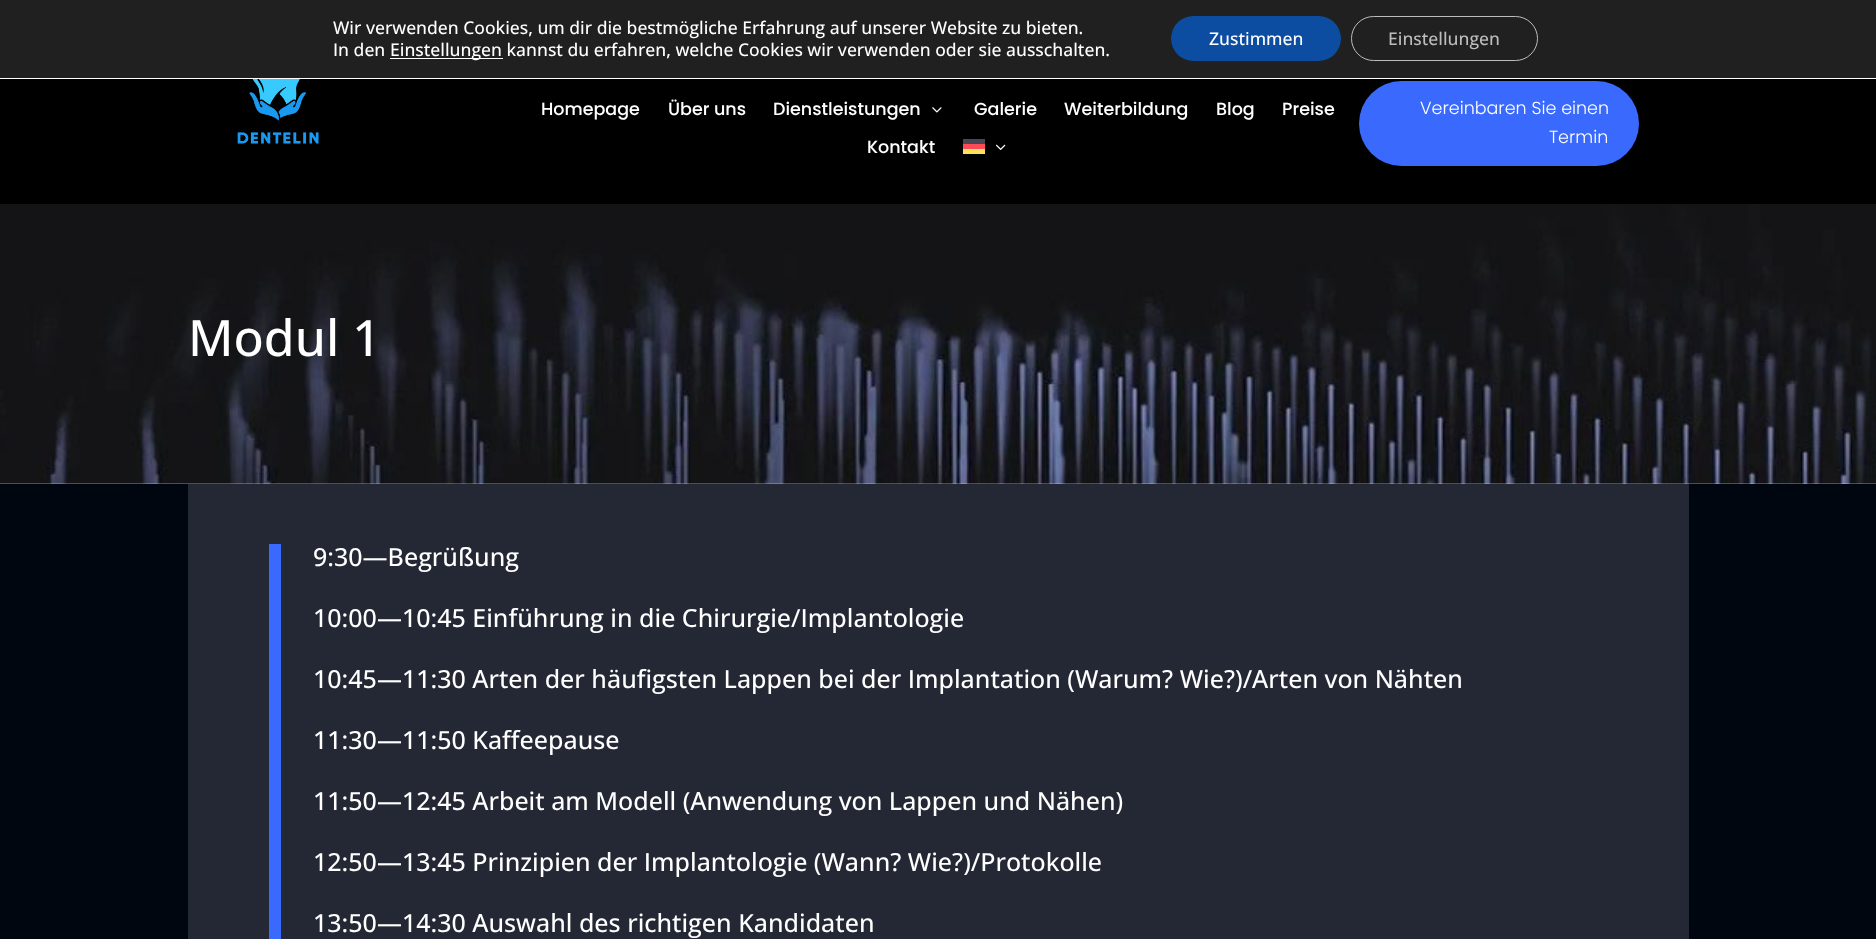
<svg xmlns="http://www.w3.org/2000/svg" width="1876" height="939">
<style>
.a{font:500 17.5px Open Sans;fill:#fff}
.b{font:500 17.5px Open Sans;fill:#bcbcbc}
.c{font:500 17.5px Poppins;fill:#fff}
.d{font:300 17.5px Poppins;fill:#fff}
.e{font:500 50px Open Sans;fill:#fff}
.f{font:500 25px Open Sans;fill:#fff}
</style>
<rect width="100%" height="100%" fill="#fff"/>
<path fill="#202020" d="M0 0h1876v78H0z"/>
<path fill="#fff" d="M390 58h113v1H390z"/>
<rect fill="#0c4da2" x="1171" y="16" width="170" height="45" rx="22.5"/>
<rect fill="none" stroke="#bcbcbc" x="1351.5" y="16.5" width="186" height="44" rx="22"/>
<path fill="#000" d="M0 79h1876v125H0z"/>
<image href="1.png" x="237" y="79" width="82" height="65"/>
<image href="2.png" x="932" y="107" width="10" height="6"/>
<path fill="#ff4b55" d="M963 144h22v5H963z"/>
<path fill="#ffe15a" d="M963 149h22v5H963z"/>
<path fill="#464655" d="M963 139h22v5H963z"/>
<image href="3.png" x="996" y="144" width="10" height="6"/>
<rect fill="#3a6afd" x="1359" y="81" width="280" height="85" rx="42.5"/>
<image href="4.png" x="0" y="204" width="1876" height="280"/>
<path fill="#00060f" d="M0 484h1876v455H0z"/>
<path fill="#242834" d="M188 484h1501v455H188z"/>
<path fill="#3a6afd" d="M269 544h12v395H269z"/>
<text class="a" x="333" y="34">Wir verwenden Cookies, um dir die bestmögliche Erfahrung auf unserer Website zu bieten.</text>
<text class="a" x="333" y="56">In den</text>
<text class="a" x="390" y="56">Einstellungen kannst du erfahren, welche Cookies wir verwenden oder sie ausschalten.</text>
<text class="a" x="1209" y="45">Zustimmen</text>
<text class="b" x="1388" y="45">Einstellungen</text>
<text class="c" x="541" y="115">Homepage</text>
<text class="c" x="668" y="115">Über uns</text>
<text class="c" x="773" y="115">Dienstleistungen</text>
<text class="c" x="974" y="115">Galerie</text>
<text class="c" x="1064" y="115">Weiterbildung</text>
<text class="c" x="1216" y="115">Blog</text>
<text class="c" x="1282" y="115">Preise</text>
<text class="c" x="867" y="153">Kontakt</text>
<text class="d" x="1420" y="114">Vereinbaren Sie einen</text>
<text class="d" x="1549" y="143">Termin</text>
<text class="e" x="188" y="356">Modul 1</text>
<text class="f" x="313" y="566">9:30—Begrüßung</text>
<text class="f" x="313" y="627">10:00—10:45 Einführung in die Chirurgie/Implantologie</text>
<text class="f" x="313" y="688">10:45—11:30 Arten der häufigsten Lappen bei der Implantation (Warum? Wie?)/Arten von Nähten</text>
<text class="f" x="313" y="749">11:30—11:50 Kaffeepause</text>
<text class="f" x="313" y="810">11:50—12:45 Arbeit am Modell (Anwendung von Lappen und Nähen)</text>
<text class="f" x="313" y="871">12:50—13:45 Prinzipien der Implantologie (Wann? Wie?)/Protokolle</text>
<text class="f" x="313" y="932">13:50—14:30 Auswahl des richtigen Kandidaten</text>
</svg>
